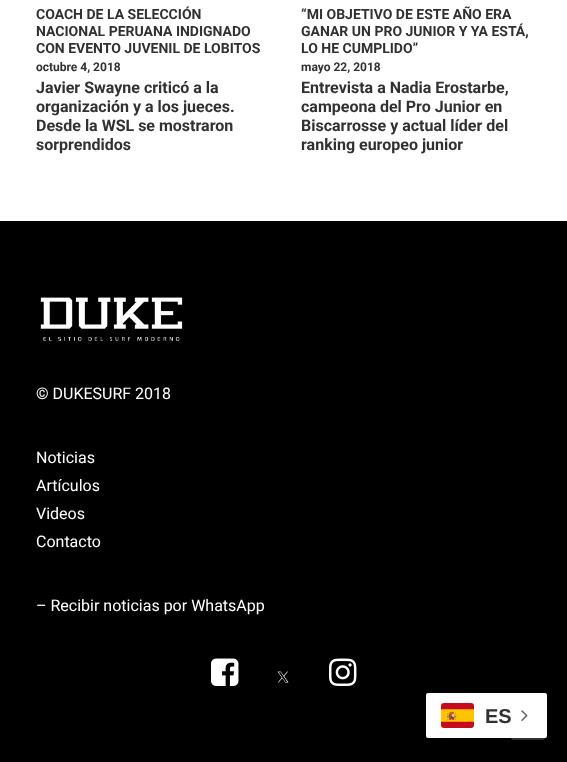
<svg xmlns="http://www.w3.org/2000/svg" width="567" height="762">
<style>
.a{font:bold 14px Roboto;fill:#303133}
.b{font:bold 12px Roboto;fill:#303133}
.c{font:bold 16px Roboto;fill:#303133}
.d{font:16px Roboto;fill:#fff}
.e{font:bold 20px Liberation Sans;fill:#303133}
</style>
<rect width="100%" height="100%" fill="#fff"/>
<path fill="#000" d="M0 221h567v541H0z"/>
<image href="1.png" x="40" y="297" width="143" height="44"/>
<image href="2.png" x="211" y="658" width="28" height="28"/>
<image href="3.png" x="277" y="671" width="12" height="12"/>
<image href="4.png" x="329" y="658" width="28" height="28"/>
<rect fill="#303133" stroke="#303133" x="511.5" y="706.5" width="33" height="33" rx="1.5"/>
<rect fill="#fff" x="426" y="693" width="121" height="45" rx="2"/>
<image href="5.png" x="441" y="703" width="33" height="25"/>
<image href="6.png" x="521" y="710" width="7" height="11"/>
<text class="a" x="36" y="19">COACH DE LA SELECCIÓN</text>
<text class="a" x="36" y="36">NACIONAL PERUANA INDIGNADO</text>
<text class="a" x="36" y="53">CON EVENTO JUVENIL DE LOBITOS</text>
<text class="b" x="36" y="71">octubre 4, 2018</text>
<text class="c" x="36" y="93">Javier Swayne criticó a la</text>
<text class="c" x="36" y="112">organización y a los jueces.</text>
<text class="c" x="36" y="131">Desde la WSL se mostraron</text>
<text class="c" x="36" y="150">sorprendidos</text>
<text class="a" x="301" y="19">“MI OBJETIVO DE ESTE AÑO ERA</text>
<text class="a" x="301" y="36">GANAR UN PRO JUNIOR Y YA ESTÁ,</text>
<text class="a" x="301" y="53">LO HE CUMPLIDO”</text>
<text class="b" x="301" y="71">mayo 22, 2018</text>
<text class="c" x="301" y="93">Entrevista a Nadia Erostarbe,</text>
<text class="c" x="301" y="112">campeona del Pro Junior en</text>
<text class="c" x="301" y="131">Biscarrosse y actual líder del</text>
<text class="c" x="301" y="150">ranking europeo junior</text>
<text class="d" x="36" y="399">© DUKESURF 2018</text>
<text class="d" x="36" y="463">Noticias</text>
<text class="d" x="36" y="491">Artículos</text>
<text class="d" x="36" y="519">Videos</text>
<text class="d" x="36" y="547">Contacto</text>
<text class="d" x="36" y="611">– Recibir noticias por WhatsApp</text>
<text class="e" x="485" y="723">ES</text>
</svg>
